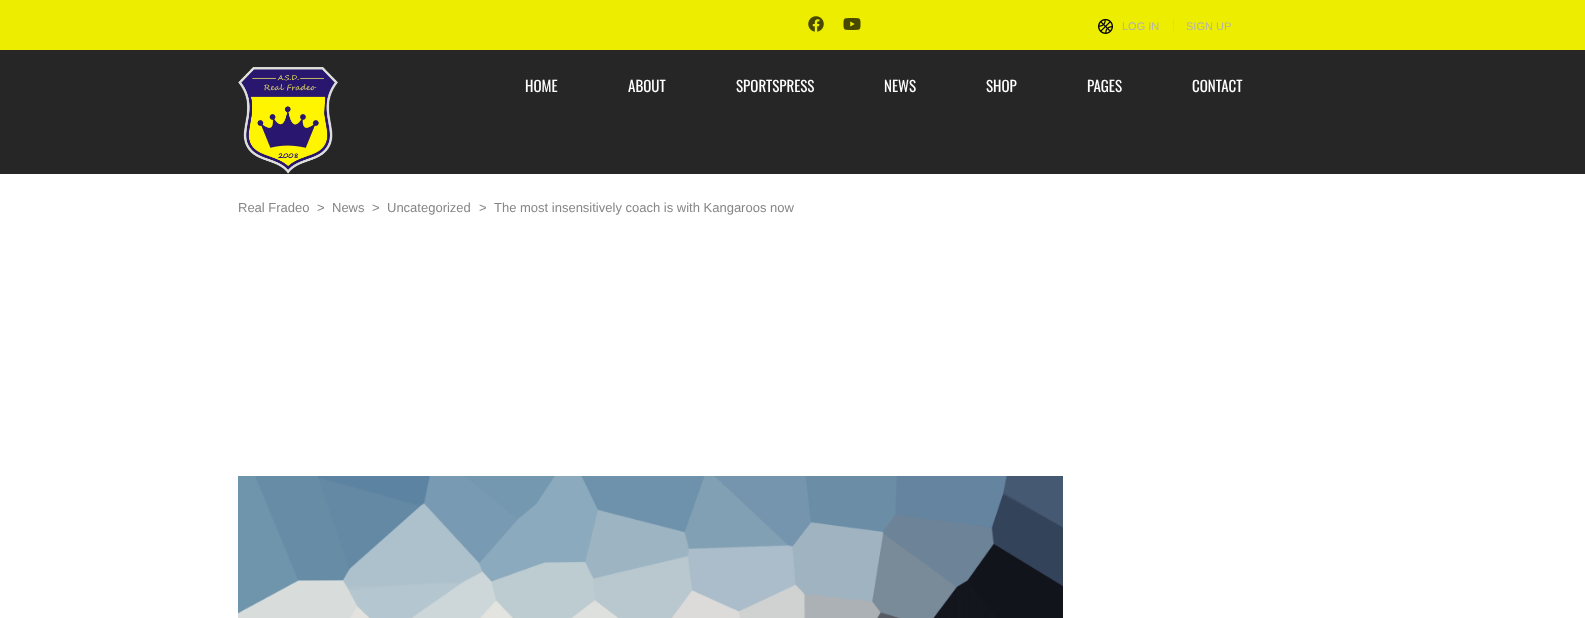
<svg xmlns="http://www.w3.org/2000/svg" width="1585" height="618">
<style>
.a{font:11px Liberation Sans;fill:#b2b2b2}
.b{font:15px Oswald;fill:#fff}
.c{font:13px Liberation Sans;fill:#868686}
</style>
<rect width="100%" height="100%" fill="#fff"/>
<path fill="#eded00" d="M0 0h1585v50H0z"/>
<image href="1.png" x="808" y="16" width="16" height="16"/>
<image href="2.png" x="843" y="18" width="18" height="12"/>
<image href="3.png" x="1098" y="18" width="15" height="16"/>
<path fill="#c9c9c9" d="M1173 19h1v12H1173z"/>
<path fill="#262626" d="M0 50h1585v124H0z"/>
<image href="4.png" x="238" y="67" width="100" height="107"/>
<image href="5.png" x="238" y="476" width="825" height="142"/>
<text class="a" x="1122" y="30">LOG IN</text>
<text class="a" x="1186" y="30">SIGN UP</text>
<text class="b" x="525" y="92">HOME</text>
<text class="b" x="628" y="92">ABOUT</text>
<text class="b" x="736" y="92">SPORTSPRESS</text>
<text class="b" x="884" y="92">NEWS</text>
<text class="b" x="986" y="92">SHOP</text>
<text class="b" x="1087" y="92">PAGES</text>
<text class="b" x="1192" y="92">CONTACT</text>
<text class="c" x="238" y="212">Real Fradeo</text>
<text class="c" x="317" y="212">&gt;</text>
<text class="c" x="332" y="212">News</text>
<text class="c" x="372" y="212">&gt;</text>
<text class="c" x="387" y="212">Uncategorized</text>
<text class="c" x="479" y="212">&gt;</text>
<text class="c" x="494" y="212">The most insensitively coach is with Kangaroos now</text>
</svg>
